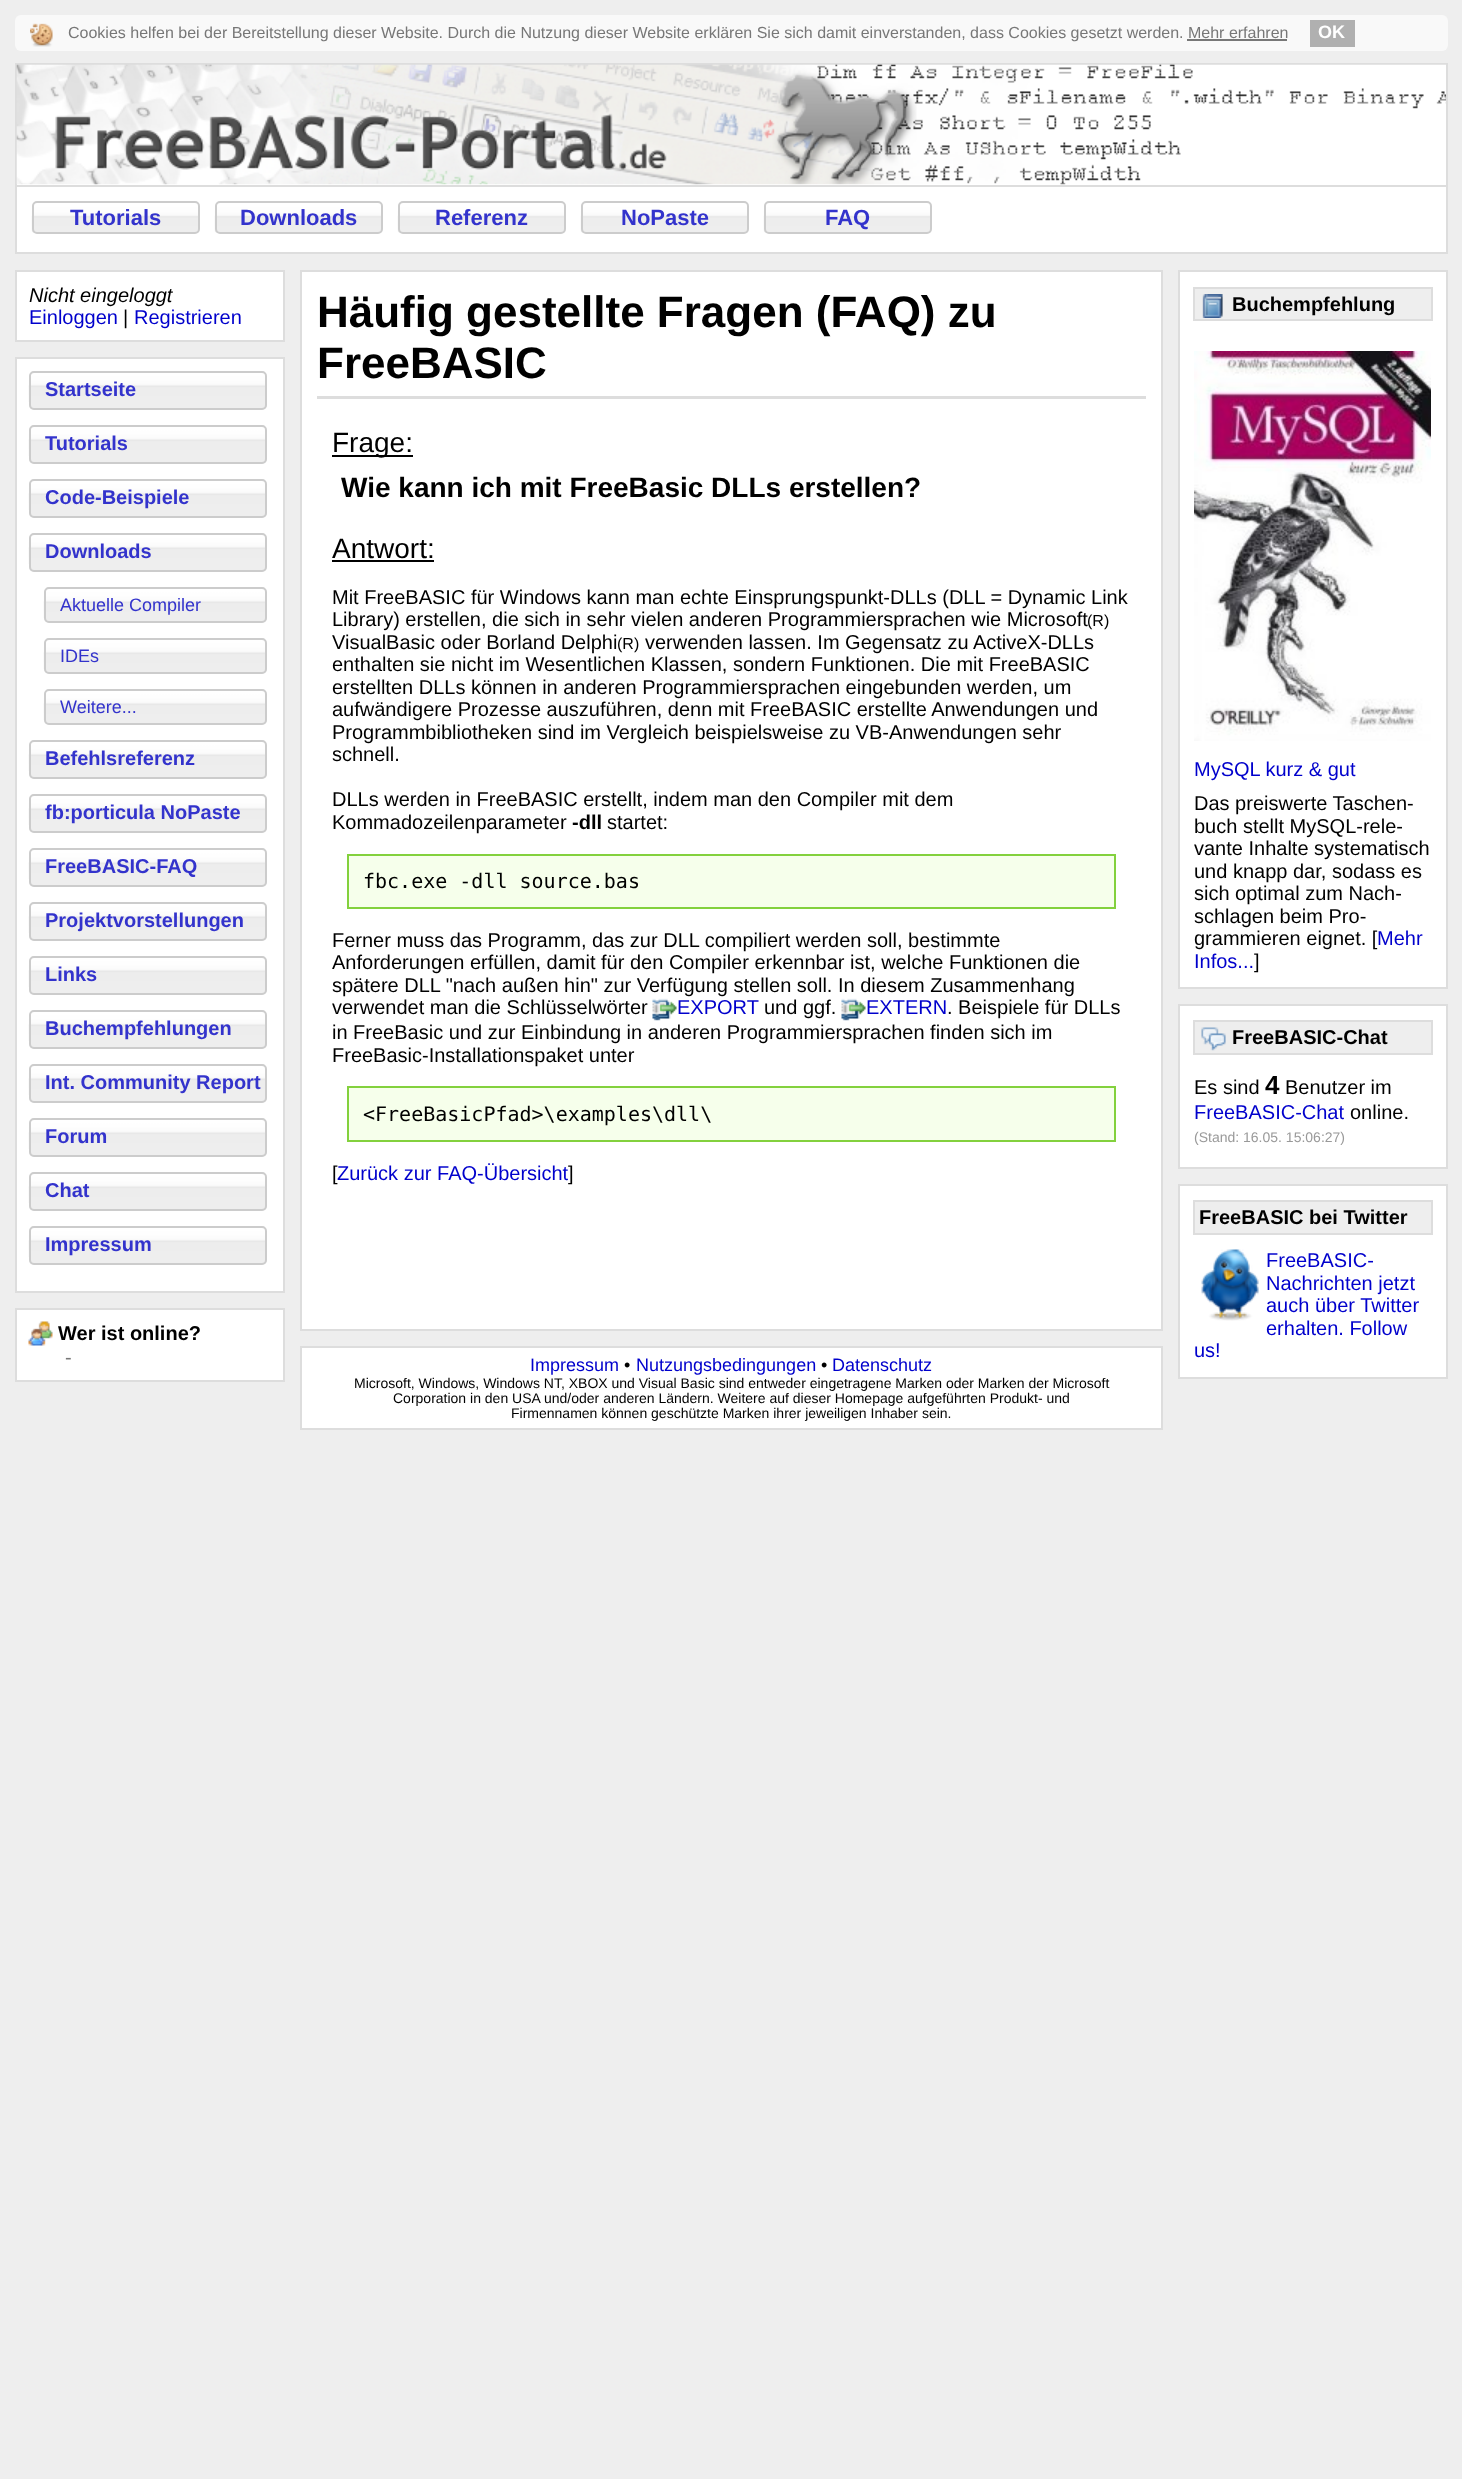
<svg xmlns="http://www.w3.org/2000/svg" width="1462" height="2479">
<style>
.a{font:16px Liberation Sans;fill:#777}
.b{font:bold 18px Liberation Sans;fill:#fff}
.c{font:bold 22px Liberation Sans;fill:#33c}
.d{font:italic 20px Liberation Sans;fill:#000}
.e{font:20px Liberation Sans;fill:#00c}
.f{font:20px Liberation Sans;fill:#000}
.g{font:bold 20px Liberation Sans;fill:#33c}
.h{font:18px Liberation Sans;fill:#33c}
.i{font:bold 20px Liberation Sans;fill:#000}
.j{font:20px Liberation Sans;fill:#777}
.k{font:bold 44px Liberation Sans;fill:#000}
.l{font:28px Liberation Sans;fill:#000}
.m{font:bold 28px Liberation Sans;fill:#000}
.n{font:16px Liberation Sans;fill:#000}
.o{font:20px DejaVu Sans Mono;fill:#000}
.p{font:bold 26px Liberation Sans;fill:#000}
.q{font:14px Liberation Sans;fill:#999}
.r{font:18px Liberation Sans;fill:#00c}
.s{font:18px Liberation Sans;fill:#000}
.t{font:14px Liberation Sans;fill:#000}
</style>
<rect width="100%" height="100%" fill="#eee"/>
<rect fill="#f9f9f9" x="15" y="15" width="1433" height="36" rx="6"/>
<image href="1.png" x="30" y="23" width="23" height="24"/>
<path fill="#b0b0b0" d="M1310 20h45v27H1310z"/>
<path fill="#777" d="M1187 39h100v2H1187z"/>
<path fill="#fff" d="M17 184h1429v68H17z"/>
<path fill="none" stroke="#ddd" stroke-width="2" d="M16 64h1431v189H16z"/>
<path fill="#ddd" d="M17 185h1429v2H17z"/>
<image href="2.png" x="16" y="64" width="1430" height="121"/>
<image href="3.png" x="31" y="202" width="169" height="31"/>
<rect fill="none" stroke="#ccc" stroke-width="2" x="33" y="202" width="166" height="31" rx="4"/>
<image href="3.png" x="214" y="202" width="169" height="31"/>
<rect fill="none" stroke="#ccc" stroke-width="2" x="216" y="202" width="166" height="31" rx="4"/>
<image href="3.png" x="397" y="202" width="169" height="31"/>
<rect fill="none" stroke="#ccc" stroke-width="2" x="399" y="202" width="166" height="31" rx="4"/>
<image href="3.png" x="580" y="202" width="169" height="31"/>
<rect fill="none" stroke="#ccc" stroke-width="2" x="582" y="202" width="166" height="31" rx="4"/>
<image href="3.png" x="763" y="202" width="169" height="31"/>
<rect fill="none" stroke="#ccc" stroke-width="2" x="765" y="202" width="166" height="31" rx="4"/>
<path fill="#fff" stroke="#ddd" stroke-width="2" d="M16 271h268v70H16z"/>
<path fill="#fff" stroke="#ddd" stroke-width="2" d="M16 358h268v934H16z"/>
<rect fill="#eee" x="29" y="371" width="238" height="39" rx="5"/>
<image href="4.png" x="28" y="372" width="239" height="30"/>
<rect fill="none" stroke="#ccc" stroke-width="2" x="30" y="372" width="236" height="37" rx="4"/>
<rect fill="#eee" x="29" y="425" width="238" height="39" rx="5"/>
<image href="5.png" x="28" y="426" width="239" height="30"/>
<rect fill="none" stroke="#ccc" stroke-width="2" x="30" y="426" width="236" height="37" rx="4"/>
<rect fill="#eee" x="29" y="479" width="238" height="39" rx="5"/>
<image href="4.png" x="28" y="480" width="239" height="30"/>
<rect fill="none" stroke="#ccc" stroke-width="2" x="30" y="480" width="236" height="37" rx="4"/>
<rect fill="#eee" x="29" y="533" width="238" height="39" rx="5"/>
<image href="4.png" x="28" y="534" width="239" height="30"/>
<rect fill="none" stroke="#ccc" stroke-width="2" x="30" y="534" width="236" height="37" rx="4"/>
<rect fill="#eee" x="44" y="587" width="223" height="36" rx="5"/>
<image href="6.png" x="43" y="588" width="224" height="30"/>
<rect fill="none" stroke="#ccc" stroke-width="2" x="45" y="588" width="221" height="34" rx="4"/>
<rect fill="#eee" x="44" y="638" width="223" height="36" rx="5"/>
<image href="7.png" x="43" y="639" width="224" height="30"/>
<rect fill="none" stroke="#ccc" stroke-width="2" x="45" y="639" width="221" height="34" rx="4"/>
<rect fill="#eee" x="44" y="689" width="223" height="36" rx="5"/>
<image href="6.png" x="43" y="690" width="224" height="30"/>
<rect fill="none" stroke="#ccc" stroke-width="2" x="45" y="690" width="221" height="34" rx="4"/>
<rect fill="#eee" x="29" y="740" width="238" height="39" rx="5"/>
<image href="8.png" x="28" y="741" width="239" height="30"/>
<rect fill="none" stroke="#ccc" stroke-width="2" x="30" y="741" width="236" height="37" rx="4"/>
<rect fill="#eee" x="29" y="794" width="238" height="39" rx="5"/>
<image href="4.png" x="28" y="795" width="239" height="30"/>
<rect fill="none" stroke="#ccc" stroke-width="2" x="30" y="795" width="236" height="37" rx="4"/>
<rect fill="#eee" x="29" y="848" width="238" height="39" rx="5"/>
<image href="5.png" x="28" y="849" width="239" height="30"/>
<rect fill="none" stroke="#ccc" stroke-width="2" x="30" y="849" width="236" height="37" rx="4"/>
<rect fill="#eee" x="29" y="902" width="238" height="39" rx="5"/>
<image href="4.png" x="28" y="903" width="239" height="30"/>
<rect fill="none" stroke="#ccc" stroke-width="2" x="30" y="903" width="236" height="37" rx="4"/>
<rect fill="#eee" x="29" y="956" width="238" height="39" rx="5"/>
<image href="4.png" x="28" y="957" width="239" height="30"/>
<rect fill="none" stroke="#ccc" stroke-width="2" x="30" y="957" width="236" height="37" rx="4"/>
<rect fill="#eee" x="29" y="1010" width="238" height="39" rx="5"/>
<image href="4.png" x="28" y="1011" width="239" height="30"/>
<rect fill="none" stroke="#ccc" stroke-width="2" x="30" y="1011" width="236" height="37" rx="4"/>
<rect fill="#eee" x="29" y="1064" width="238" height="39" rx="5"/>
<image href="5.png" x="28" y="1065" width="239" height="30"/>
<rect fill="none" stroke="#ccc" stroke-width="2" x="30" y="1065" width="236" height="37" rx="4"/>
<rect fill="#eee" x="29" y="1118" width="238" height="39" rx="5"/>
<image href="9.png" x="28" y="1119" width="239" height="30"/>
<rect fill="none" stroke="#ccc" stroke-width="2" x="30" y="1119" width="236" height="37" rx="4"/>
<rect fill="#eee" x="29" y="1172" width="238" height="39" rx="5"/>
<image href="4.png" x="28" y="1173" width="239" height="30"/>
<rect fill="none" stroke="#ccc" stroke-width="2" x="30" y="1173" width="236" height="37" rx="4"/>
<rect fill="#eee" x="29" y="1226" width="238" height="39" rx="5"/>
<image href="4.png" x="28" y="1227" width="239" height="30"/>
<rect fill="none" stroke="#ccc" stroke-width="2" x="30" y="1227" width="236" height="37" rx="4"/>
<path fill="#fff" stroke="#ddd" stroke-width="2" d="M16 1309h268v72H16z"/>
<image href="10.png" x="28" y="1321" width="25" height="25"/>
<path fill="#fff" stroke="#ddd" stroke-width="2" d="M301 271h861v1059H301z"/>
<path fill="#ddd" d="M317 396h829v3H317z"/>
<path fill="#000" d="M332 455h81v2H332z"/>
<path fill="#000" d="M332 560h102v2H332z"/>
<path fill="#f6ffeb" stroke="#83d13d" stroke-width="2" d="M348 855h767v53H348z"/>
<image href="11.png" x="652" y="998" width="25" height="23"/>
<image href="12.png" x="841" y="998" width="25" height="23"/>
<path fill="#f6ffeb" stroke="#83d13d" stroke-width="2" d="M348 1087h767v54H348z"/>
<path fill="#fff" stroke="#ddd" stroke-width="2" d="M1179 271h268v717H1179z"/>
<path fill="#eee" stroke="#ddd" stroke-width="2" d="M1194 288h238v32H1194z"/>
<image href="13.png" x="1202" y="294" width="21" height="24"/>
<image href="14.png" x="1194" y="351" width="237" height="390"/>
<path fill="#fff" stroke="#ddd" stroke-width="2" d="M1179 1005h268v163H1179z"/>
<path fill="#eee" stroke="#ddd" stroke-width="2" d="M1194 1021h238v33H1194z"/>
<image href="15.png" x="1201" y="1027" width="25" height="24"/>
<path fill="#fff" stroke="#ddd" stroke-width="2" d="M1179 1185h268v193H1179z"/>
<path fill="#eee" stroke="#ddd" stroke-width="2" d="M1194 1201h238v33H1194z"/>
<image href="16.png" x="1201" y="1249" width="58" height="72"/>
<path fill="#fff" stroke="#ddd" stroke-width="2" d="M301 1347h861v82H301z"/>
<text class="a" x="68" y="38">Cookies helfen bei der Bereitstellung dieser Website. Durch die Nutzung dieser Website erklären Sie sich damit einverstanden, dass Cookies gesetzt werden. Mehr erfahren</text>
<text class="b" x="1318" y="38">OK</text>
<text class="c" x="70" y="225">Tutorials</text>
<text class="c" x="240" y="225">Downloads</text>
<text class="c" x="435" y="225">Referenz</text>
<text class="c" x="621" y="225">NoPaste</text>
<text class="c" x="825" y="225">FAQ</text>
<text class="d" x="29" y="302">Nicht eingeloggt</text>
<text class="e" x="29" y="324">Einloggen</text>
<text class="f" x="123" y="324">|</text>
<text class="e" x="134" y="324">Registrieren</text>
<text class="g" x="45" y="396">Startseite</text>
<text class="g" x="45" y="450">Tutorials</text>
<text class="g" x="45" y="504">Code-Beispiele</text>
<text class="g" x="45" y="558">Downloads</text>
<text class="h" x="60" y="611">Aktuelle Compiler</text>
<text class="h" x="60" y="662">IDEs</text>
<text class="h" x="60" y="713">Weitere...</text>
<text class="g" x="45" y="765">Befehlsreferenz</text>
<text class="g" x="45" y="819">fb:porticula NoPaste</text>
<text class="g" x="45" y="873">FreeBASIC-FAQ</text>
<text class="g" x="45" y="927">Projektvorstellungen</text>
<text class="g" x="45" y="981">Links</text>
<text class="g" x="45" y="1035">Buchempfehlungen</text>
<text class="g" x="45" y="1089">Int. Community Report</text>
<text class="g" x="45" y="1143">Forum</text>
<text class="g" x="45" y="1197">Chat</text>
<text class="g" x="45" y="1251">Impressum</text>
<text class="i" x="58" y="1340">Wer ist online?</text>
<text class="j" x="65" y="1364">-</text>
<text class="k" x="317" y="327">Häufig gestellte Fragen (FAQ) zu</text>
<text class="k" x="317" y="378">FreeBASIC</text>
<text class="l" x="332" y="452">Frage:</text>
<text class="m" x="341" y="497">Wie kann ich mit FreeBasic DLLs erstellen?</text>
<text class="l" x="332" y="558">Antwort:</text>
<text class="f" x="332" y="604">Mit FreeBASIC für Windows kann man echte Einsprungspunkt-DLLs (DLL = Dynamic Link</text>
<text class="f" x="332" y="626">Library) erstellen, die sich in sehr vielen anderen Programmiersprachen wie Microsoft</text>
<text class="n" x="1087" y="626">(R)</text>
<text class="f" x="332" y="649">VisualBasic oder Borland Delphi</text>
<text class="n" x="617" y="649">(R)</text>
<text class="f" x="645" y="649">verwenden lassen. Im Gegensatz zu ActiveX-DLLs</text>
<text class="f" x="332" y="671">enthalten sie nicht im Wesentlichen Klassen, sondern Funktionen. Die mit FreeBASIC</text>
<text class="f" x="332" y="694">erstellten DLLs können in anderen Programmiersprachen eingebunden werden, um</text>
<text class="f" x="332" y="716">aufwändigere Prozesse auszuführen, denn mit FreeBASIC erstellte Anwendungen und</text>
<text class="f" x="332" y="739">Programmbibliotheken sind im Vergleich beispielsweise zu VB-Anwendungen sehr</text>
<text class="f" x="332" y="761">schnell.</text>
<text class="f" x="332" y="806">DLLs werden in FreeBASIC erstellt, indem man den Compiler mit dem</text>
<text class="f" x="332" y="829">Kommadozeilenparameter</text>
<text class="i" x="572" y="829">-dll</text>
<text class="f" x="607" y="829">startet:</text>
<text class="o" x="363" y="888">fbc.exe -dll source.bas</text>
<text class="f" x="332" y="947">Ferner muss das Programm, das zur DLL compiliert werden soll, bestimmte</text>
<text class="f" x="332" y="969">Anforderungen erfüllen, damit für den Compiler erkennbar ist, welche Funktionen die</text>
<text class="f" x="332" y="992">spätere DLL "nach außen hin" zur Verfügung stellen soll. In diesem Zusammenhang</text>
<text class="f" x="332" y="1014">verwendet man die Schlüsselwörter</text>
<text class="e" x="677" y="1014">EXPORT</text>
<text class="f" x="764" y="1014">und ggf.</text>
<text class="e" x="866" y="1014">EXTERN</text>
<text class="f" x="947" y="1014">. Beispiele für DLLs</text>
<text class="f" x="332" y="1039">in FreeBasic und zur Einbindung in anderen Programmiersprachen finden sich im</text>
<text class="f" x="332" y="1062">FreeBasic-Installationspaket unter</text>
<text class="o" x="363" y="1121">&lt;FreeBasicPfad&gt;\examples\dll\</text>
<text class="f" x="332" y="1180">[</text>
<text class="e" x="337" y="1180">Zurück zur FAQ-Übersicht</text>
<text class="f" x="568" y="1180">]</text>
<text class="i" x="1232" y="311">Buchempfehlung</text>
<text class="e" x="1194" y="776">MySQL kurz &amp; gut</text>
<text class="f" x="1194" y="810">Das preiswerte Taschen-</text>
<text class="f" x="1194" y="833">buch stellt MySQL-rele-</text>
<text class="f" x="1194" y="855">vante Inhalte systematisch</text>
<text class="f" x="1194" y="878">und knapp dar, sodass es</text>
<text class="f" x="1194" y="900">sich optimal zum Nach-</text>
<text class="f" x="1194" y="923">schlagen beim Pro-</text>
<text class="f" x="1194" y="945">grammieren eignet. [</text>
<text class="e" x="1377" y="945">Mehr</text>
<text class="e" x="1194" y="968">Infos...</text>
<text class="f" x="1254" y="968">]</text>
<text class="i" x="1232" y="1044">FreeBASIC-Chat</text>
<text class="f" x="1194" y="1094">Es sind</text>
<text class="p" x="1265" y="1094">4</text>
<text class="f" x="1285" y="1094">Benutzer im</text>
<text class="e" x="1194" y="1119">FreeBASIC-Chat</text>
<text class="f" x="1350" y="1119">online.</text>
<text class="q" x="1194" y="1142">(Stand: 16.05. 15:06:27)</text>
<text class="i" x="1199" y="1224">FreeBASIC bei Twitter</text>
<text class="e" x="1266" y="1267">FreeBASIC-</text>
<text class="e" x="1266" y="1290">Nachrichten jetzt</text>
<text class="e" x="1266" y="1312">auch über Twitter</text>
<text class="e" x="1266" y="1335">erhalten. Follow</text>
<text class="e" x="1194" y="1357">us!</text>
<text class="r" x="530" y="1371">Impressum</text>
<text class="s" x="624" y="1371">•</text>
<text class="r" x="636" y="1371">Nutzungsbedingungen</text>
<text class="s" x="821" y="1371">•</text>
<text class="r" x="832" y="1371">Datenschutz</text>
<text class="t" x="354" y="1388">Microsoft, Windows, Windows NT, XBOX und Visual Basic sind entweder eingetragene Marken oder Marken der Microsoft</text>
<text class="t" x="393" y="1403">Corporation in den USA und/oder anderen Ländern. Weitere auf dieser Homepage aufgeführten Produkt- und</text>
<text class="t" x="511" y="1418">Firmennamen können geschützte Marken ihrer jeweiligen Inhaber sein.</text>
</svg>
